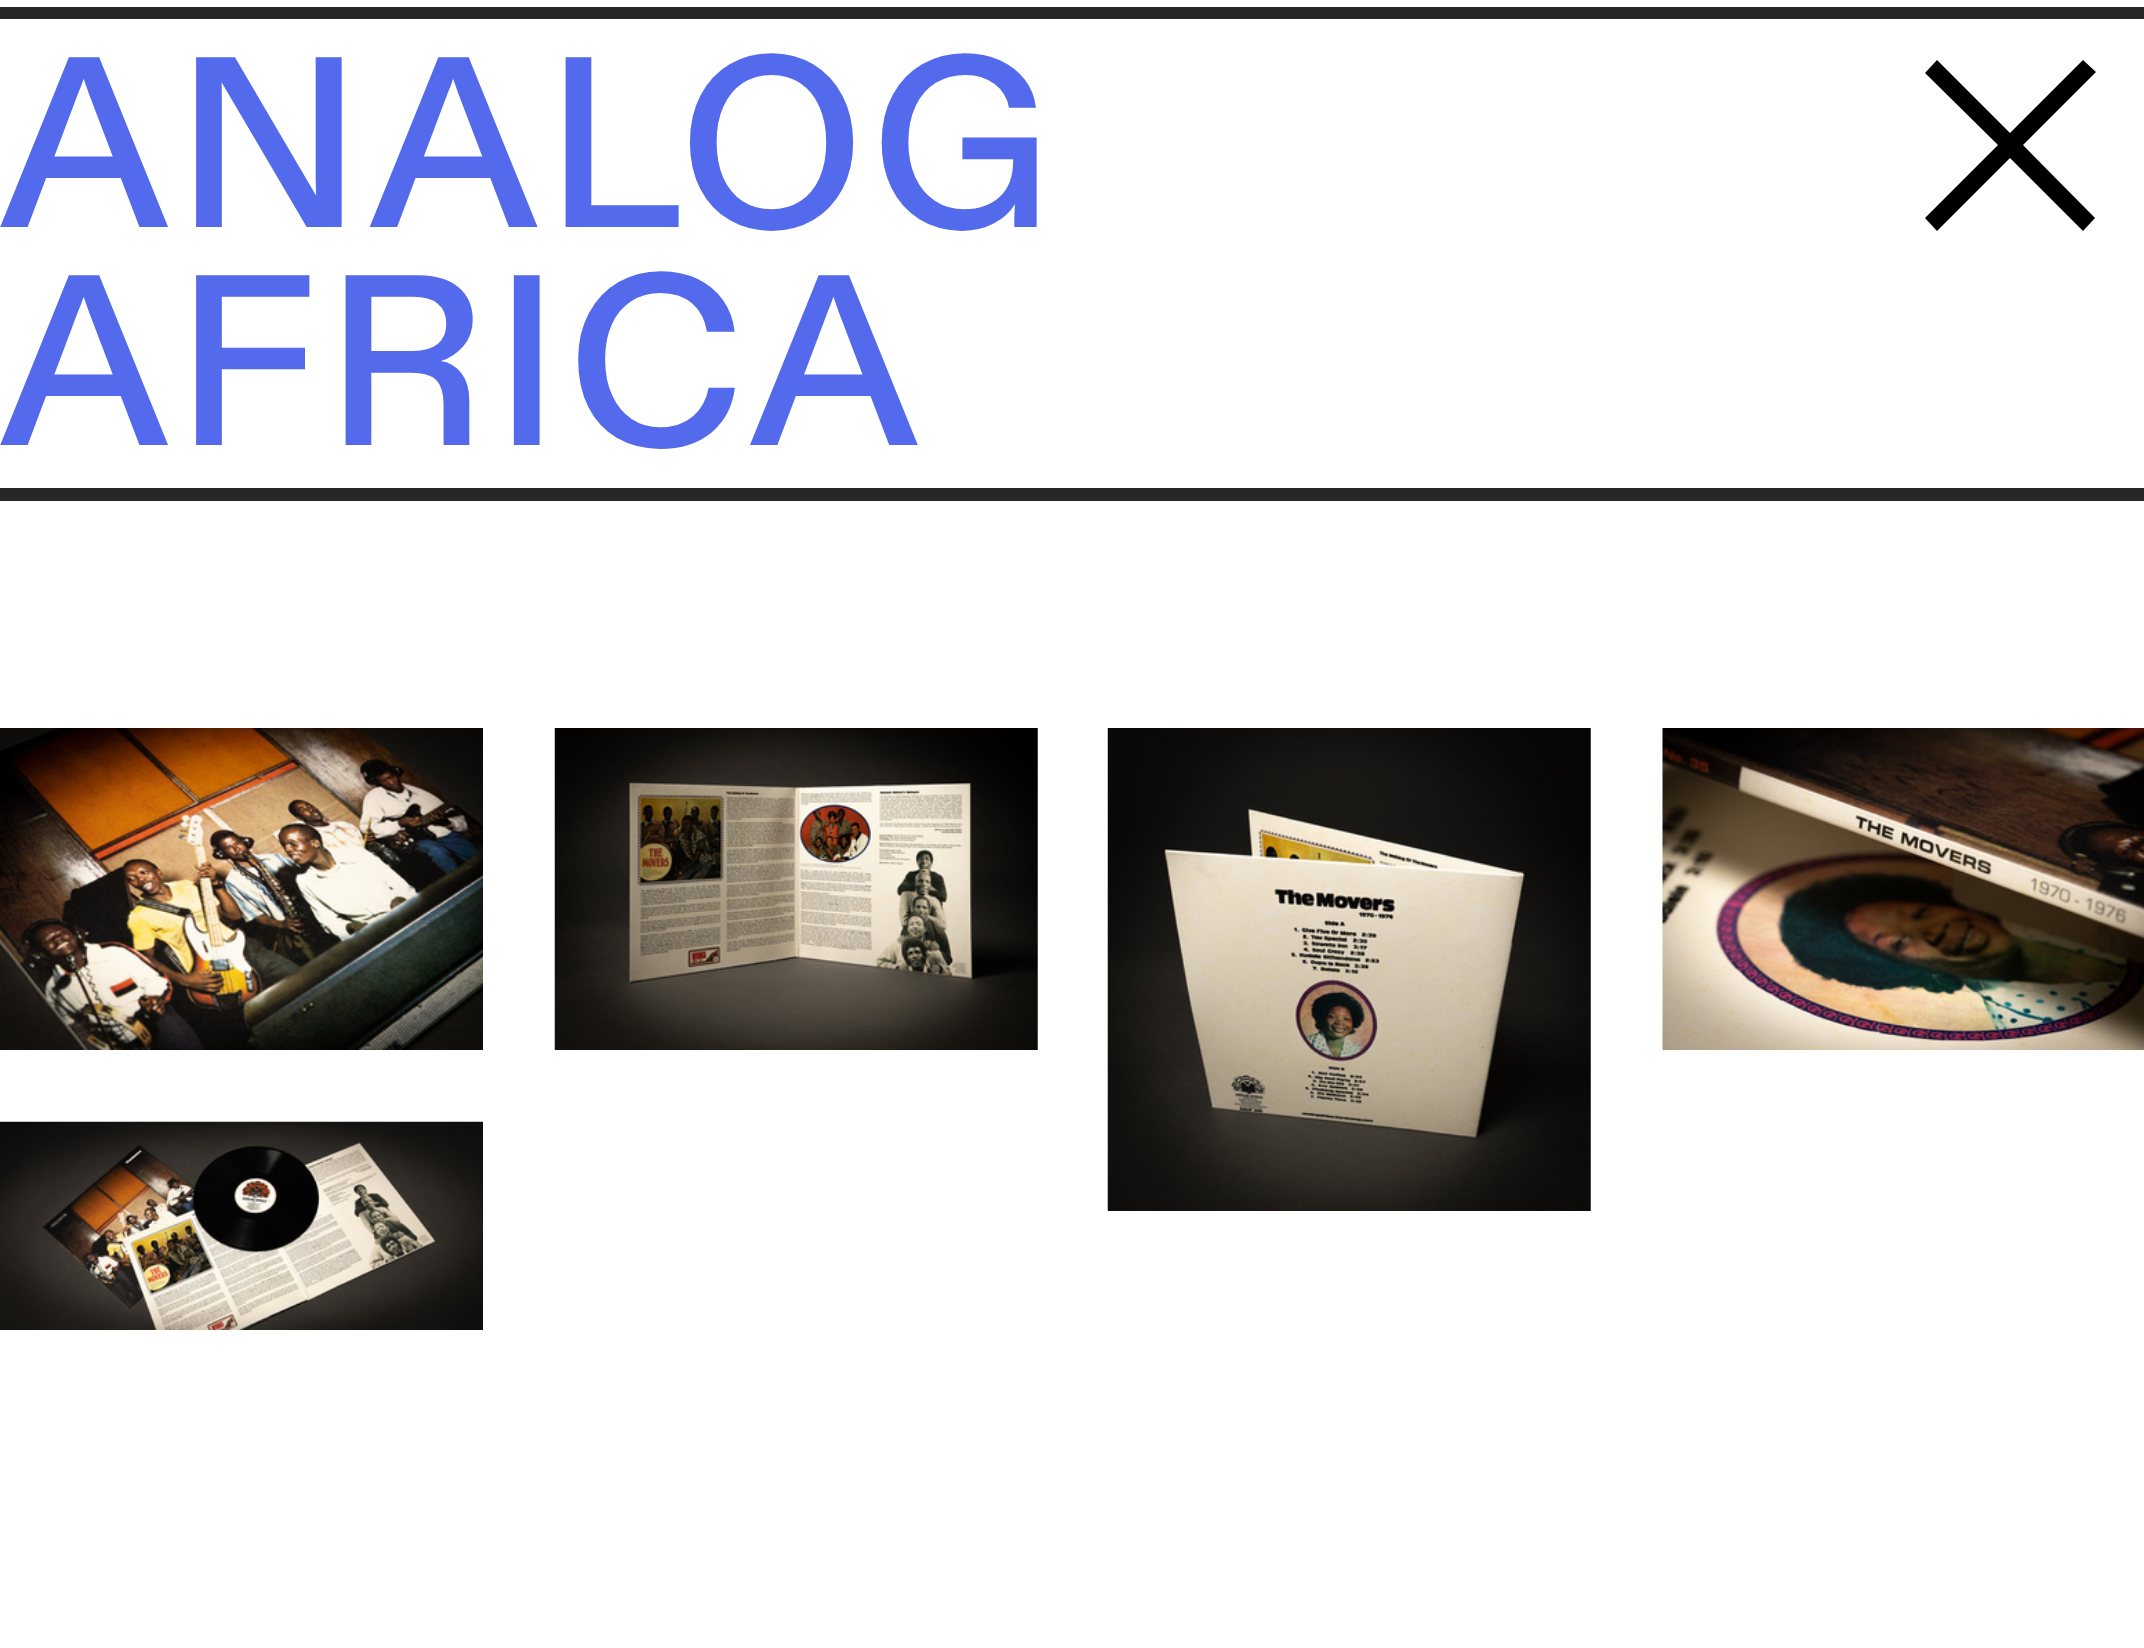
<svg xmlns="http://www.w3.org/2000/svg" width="2144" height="1648">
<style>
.a{font:500 242.5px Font;letter-spacing:7.25px;fill:#546aec}
</style>
<rect width="100%" height="100%" fill="#fff"/>
<path fill="#262626" d="M0 7h2144v12H0z"/>
<path fill="#000" d="M1925 73l73 72l-73 73l12 13l73-73l73 73l12-13l-72-73l73-73l-13-12l-73 73l-73-73z"/>
<path fill="#262626" d="M0 488h2144v13H0z"/>
<image href="1.png" x="0" y="728" width="483" height="322"/>
<image href="2.png" x="0" y="1121" width="483" height="209"/>
<image href="3.png" x="554" y="728" width="484" height="322"/>
<image href="4.png" x="1107" y="728" width="484" height="483"/>
<image href="5.png" x="1662" y="728" width="482" height="322"/>
<text class="a" x="0" y="227">ANALOG</text>
<text class="a" x="0" y="445">AFRICA</text>
</svg>
